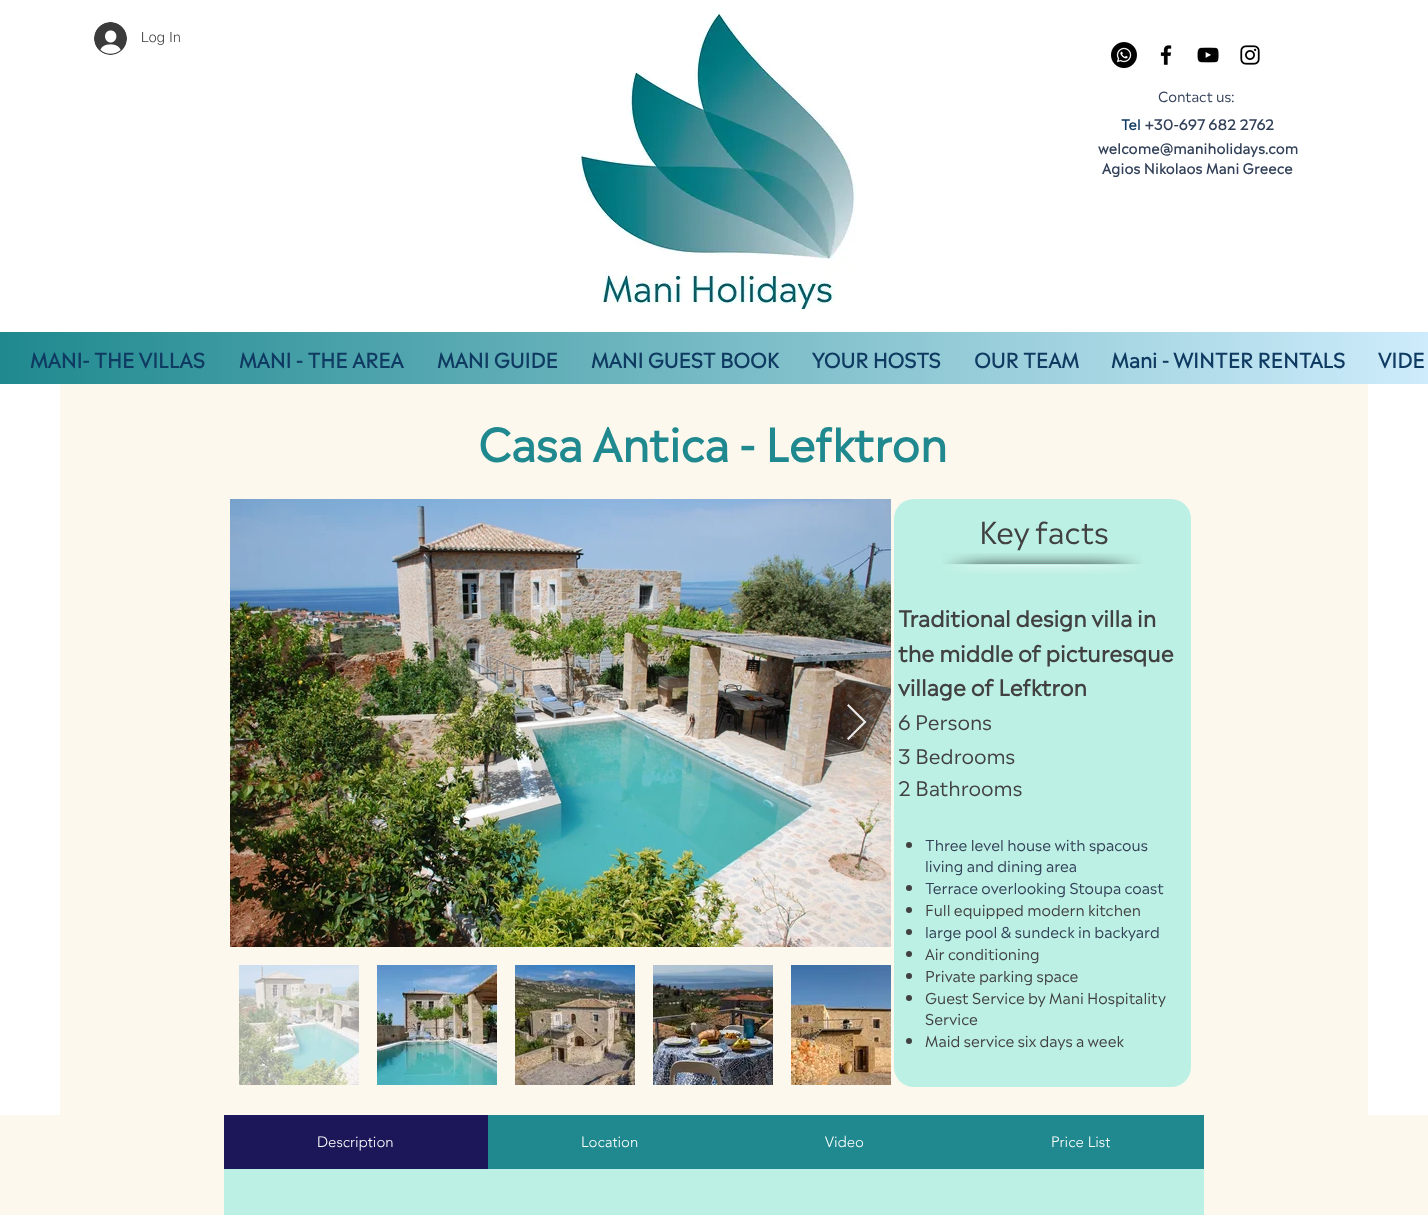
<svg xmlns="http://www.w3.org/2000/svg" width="1428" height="1215">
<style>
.a{font:300 14px helvetica;fill:#3b3b3b}
.b{font:14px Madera;fill:#324158}
.c{font:bold 14px Madera;letter-spacing:0.25px;fill:#0f3a61}
.d{font:bold 14px Madera;letter-spacing:0.25px;fill:#324158}
.e{font:bold 20px Madera;fill:#0f3a61}
.f{font:bold 45px Madera;fill:#1f898f}
.g{font:30px Madera;fill:#414141}
.h{font:bold 22px Madera;fill:#414141}
.i{font:20px Madera;fill:#414141}
.j{font:15px Madera;fill:#324158}
.k{font:15px Madera;fill:#414141}
.l{font:300 15px 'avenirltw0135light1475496';fill:#fff}
</style>
<defs>
<linearGradient id="g1" gradientUnits="userSpaceOnUse" x1="0" y1="358" x2="1428" y2="358"><stop offset="0" stop-color="#1f898f"/><stop offset="1" stop-color="#ceecfb"/></linearGradient>
</defs>
<rect width="100%" height="100%" fill="#fff"/>
<image href="1.png" x="578" y="8" width="278" height="301"/>
<image href="2.png" x="94" y="22" width="33" height="33"/>
<image href="3.png" x="1111" y="42" width="26" height="26"/>
<image href="4.png" x="1160" y="45" width="12" height="20"/>
<image href="5.png" x="1197" y="47" width="22" height="16"/>
<image href="6.png" x="1240" y="45" width="20" height="20"/>
<path fill="url(#g1)" d="M0 332h1428v52H0z"/>
<path fill="#fcf8ed" d="M60 384h1308v731H60z"/>
<image href="7.png" x="230" y="499" width="661" height="448"/>
<path fill="#ffffffe6" d="M847 705.5l1.5-1.5l18 18l-18 18l-1.5-1.5l16.5-16.5z"/>
<image href="8.png" x="239" y="965" width="120" height="120"/>
<image href="9.png" x="377" y="965" width="120" height="120"/>
<image href="10.png" x="515" y="965" width="120" height="120"/>
<image href="11.png" x="653" y="965" width="120" height="120"/>
<image href="12.png" x="791" y="965" width="100" height="120"/>
<rect fill="#bdf0e4" x="894" y="499" width="297" height="588" rx="20"/>
<circle fill="#414141" cx="909" cy="845" r="3"/>
<circle fill="#414141" cx="909" cy="888" r="3"/>
<circle fill="#414141" cx="909" cy="910" r="3"/>
<circle fill="#414141" cx="909" cy="932" r="3"/>
<circle fill="#414141" cx="909" cy="954" r="3"/>
<circle fill="#414141" cx="909" cy="976" r="3"/>
<circle fill="#414141" cx="909" cy="998" r="3"/>
<circle fill="#414141" cx="909" cy="1041" r="3"/>
<image href="13.png" x="943" y="553" width="97" height="21"/>
<image href="14.png" x="1040" y="553" width="5" height="21"/>
<image href="15.png" x="1045" y="553" width="97" height="21"/>
<path fill="#fcf8ed" d="M0 1115h1428v100H0z"/>
<path fill="#1b1759" d="M224 1115h264v54H224z"/>
<path fill="#1f898f" d="M488 1115h716v54H488z"/>
<path fill="#bdf0e4" d="M224 1169h980v46H224z"/>
<text class="a" x="141" y="42">Log In</text>
<text class="b" x="1158" y="102">Contact us:</text>
<text class="c" x="1121" y="130">Tel</text>
<text class="d" x="1145" y="130">+30-697 682 2762</text>
<text class="d" x="1098" y="154">welcome@maniholidays.com</text>
<text class="d" x="1102" y="174">Agios Nikolaos Mani Greece</text>
<text class="e" x="30" y="368">MANI- THE VILLAS</text>
<text class="e" x="239" y="368">MANI - THE AREA</text>
<text class="e" x="437" y="368">MANI GUIDE</text>
<text class="e" x="591" y="368">MANI GUEST BOOK</text>
<text class="e" x="812" y="368">YOUR HOSTS</text>
<text class="e" x="974" y="368">OUR TEAM</text>
<text class="e" x="1111" y="368">Mani - WINTER RENTALS</text>
<text class="e" x="1378" y="368">VIDE</text>
<text class="f" x="478" y="462">Casa Antica - Lefktron</text>
<text class="g" x="979" y="544" word-spacing="-1">Key f</text>
<text class="g" x="1048" y="544">acts</text>
<text class="h" x="898" y="627">Traditional design villa in</text>
<text class="h" x="898" y="662">the middle of picturesque</text>
<text class="h" x="898" y="696">village of Lefktron</text>
<text class="i" x="898" y="730">6 Persons</text>
<text class="i" x="898" y="764">3 Bedrooms</text>
<text class="i" x="898" y="796">2 Bathrooms</text>
<text class="j" x="925" y="851">Three level house with spacous</text>
<text class="j" x="925" y="872">living and dining area</text>
<text class="j" x="925" y="894">Terrace overlooking Stoupa coast</text>
<text class="k" x="925" y="916">Full equipped modern kitchen</text>
<text class="j" x="925" y="938">large pool &amp; sundeck in backyard</text>
<text class="k" x="925" y="960">Air conditioning</text>
<text class="k" x="925" y="982">Private parking space</text>
<text class="k" x="925" y="1004">Guest Service by Mani Hospitality</text>
<text class="k" x="925" y="1025">Service</text>
<text class="k" x="925" y="1047">Maid service six days a week</text>
<text class="l" x="317" y="1147">Description</text>
<text class="l" x="581" y="1147">Location</text>
<text class="l" x="825" y="1147">Video</text>
<text class="l" x="1051" y="1147">Price List</text>
</svg>
